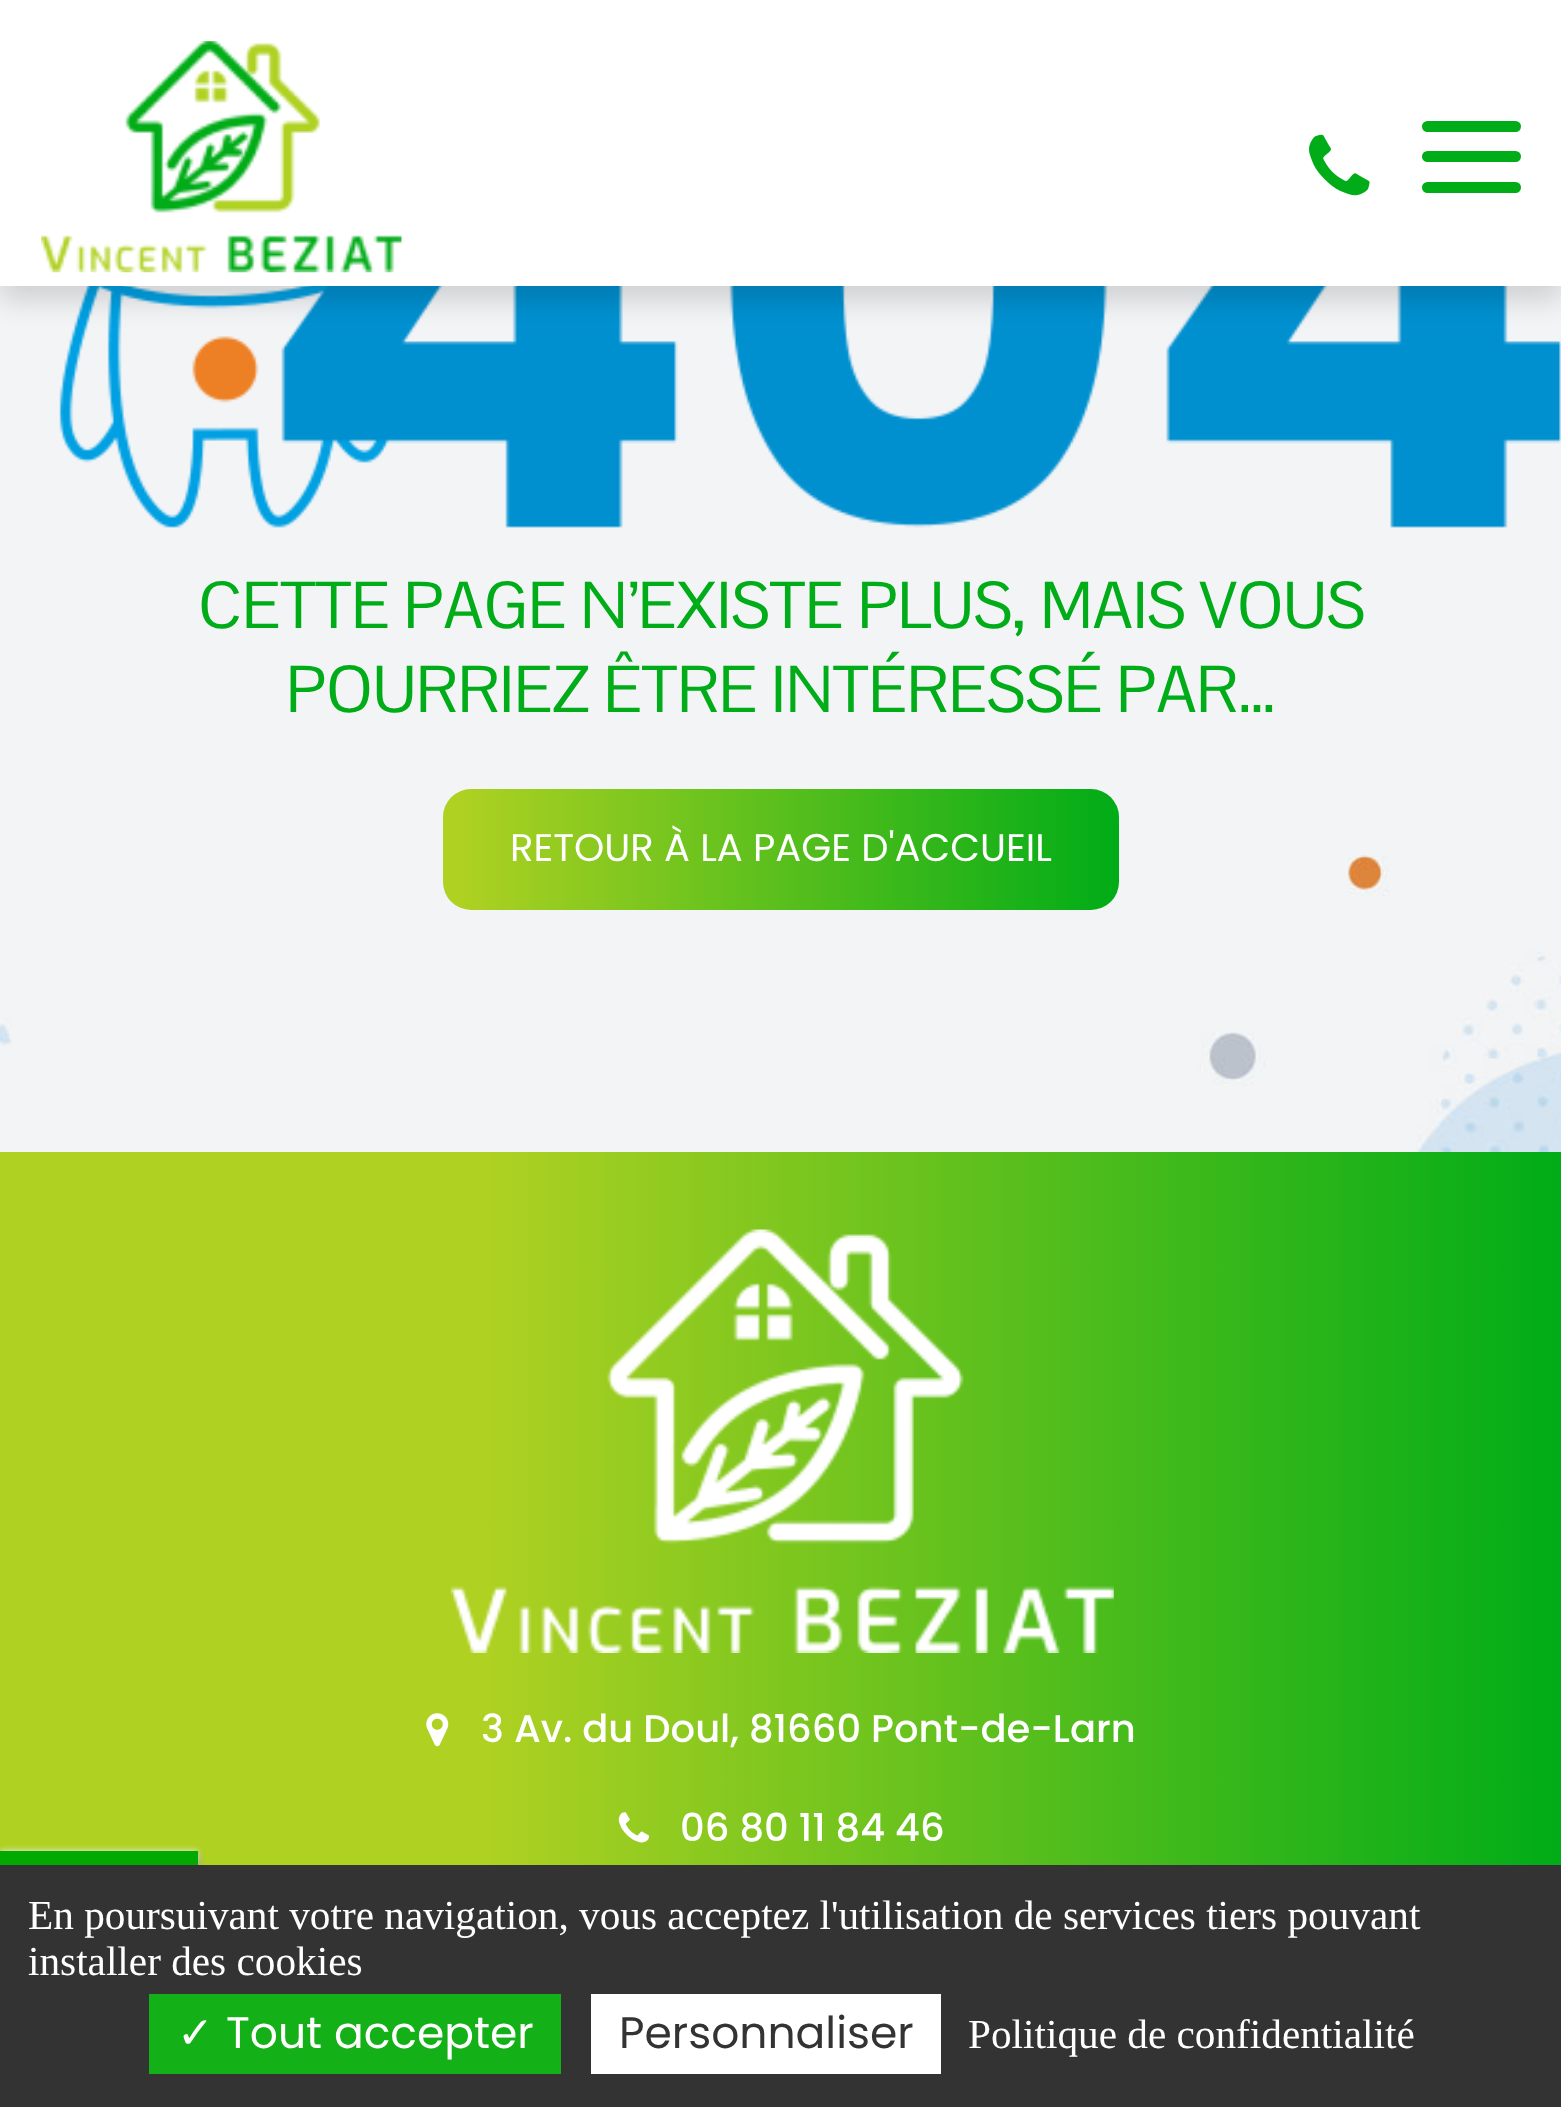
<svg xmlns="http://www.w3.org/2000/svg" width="1561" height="2107">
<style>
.a{font:64.7px Pontano Sans;fill:#00ac17}
.b{font:38.5px Poppins;fill:#fff}
.c{font:500 38.5px Poppins;fill:#fff}
.d{font:41.25px Liberation Serif;fill:#fff}
.e{font:44px DejaVu Sans;fill:#fff}
.f{font:44px Poppins;fill:#fff}
.g{font:44px Poppins;fill:#333}
</style>
<defs>
<linearGradient id="g1" gradientUnits="userSpaceOnUse" x1="443" y1="850" x2="1119" y2="850"><stop offset="0.02" stop-color="#afd122"/><stop offset="1" stop-color="#00ac17"/></linearGradient>
<linearGradient id="g2" gradientUnits="userSpaceOnUse" x1="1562" y1="1845" x2="0" y2="1845"><stop offset="0" stop-color="#00ac17"/><stop offset="0.69" stop-color="#afd122"/></linearGradient>
</defs>
<rect width="100%" height="100%" fill="#fff"/>
<image href="3.png" x="0" y="286" width="1561" height="866"/>
<image href="4.png" x="59" y="286" width="1502" height="242"/>
<path fill="#00000026" filter="blur(14px)" d="M0 14h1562v286H0z"/>
<path fill="#fff" d="M0 0h1561v286H0z"/>
<image href="1.png" x="41" y="41" width="361" height="232"/>
<rect fill="#00ac17" x="1422" y="121" width="99" height="11" rx="5.5"/>
<rect fill="#00ac17" x="1422" y="151" width="99" height="11" rx="5.5"/>
<rect fill="#00ac17" x="1422" y="182" width="99" height="11" rx="5.5"/>
<image href="2.png" x="1309" y="134" width="61" height="62"/>
<rect fill="url(#g1)" x="443" y="789" width="676" height="121" rx="28"/>
<path fill="url(#g2)" d="M0 1152h1561v713H0z"/>
<image href="5.png" x="451" y="1229" width="663" height="424"/>
<image href="6.png" x="426" y="1713" width="23" height="34"/>
<image href="7.png" x="618" y="1812" width="31" height="31"/>
<path fill="#555" filter="blur(3px)" d="M0 1854h198v13H0z"/>
<path fill="#fff" filter="blur(3px)" d="M0 1851h198v14H0z"/>
<path fill="#0a0" d="M0 1851h198v14H0z"/>
<path fill="#333" d="M0 1865h1561v242H0z"/>
<path fill="#13b018" d="M149 1994h412v80H149z"/>
<path fill="#fff" d="M591 1994h350v80H591z"/>
<text class="a" x="198" y="628">CETTE PAGE N’EXISTE PLUS, MAIS VOUS</text>
<text class="a" x="286" y="712">POURRIEZ ÊTRE INTÉRESSÉ PAR…</text>
<text class="b" x="510" y="861">RETOUR À LA PAGE D'ACCUEIL</text>
<text class="c" x="481" y="1742">3 Av. du Doul, 81660 Pont-de-Larn</text>
<text class="c" x="680" y="1841">06 80 11 84 46</text>
<text class="d" x="28" y="1929">En poursuivant votre navigation, vous acceptez l'utilisation de services tiers pouvant</text>
<text class="d" x="28" y="1975">installer des cookies</text>
<text class="e" x="177" y="2048">✓</text>
<text class="f" x="226" y="2048">Tout accepter</text>
<text class="g" x="619" y="2048">Personnaliser</text>
<text class="d" x="968" y="2048">Politique de confidentialité</text>
</svg>
